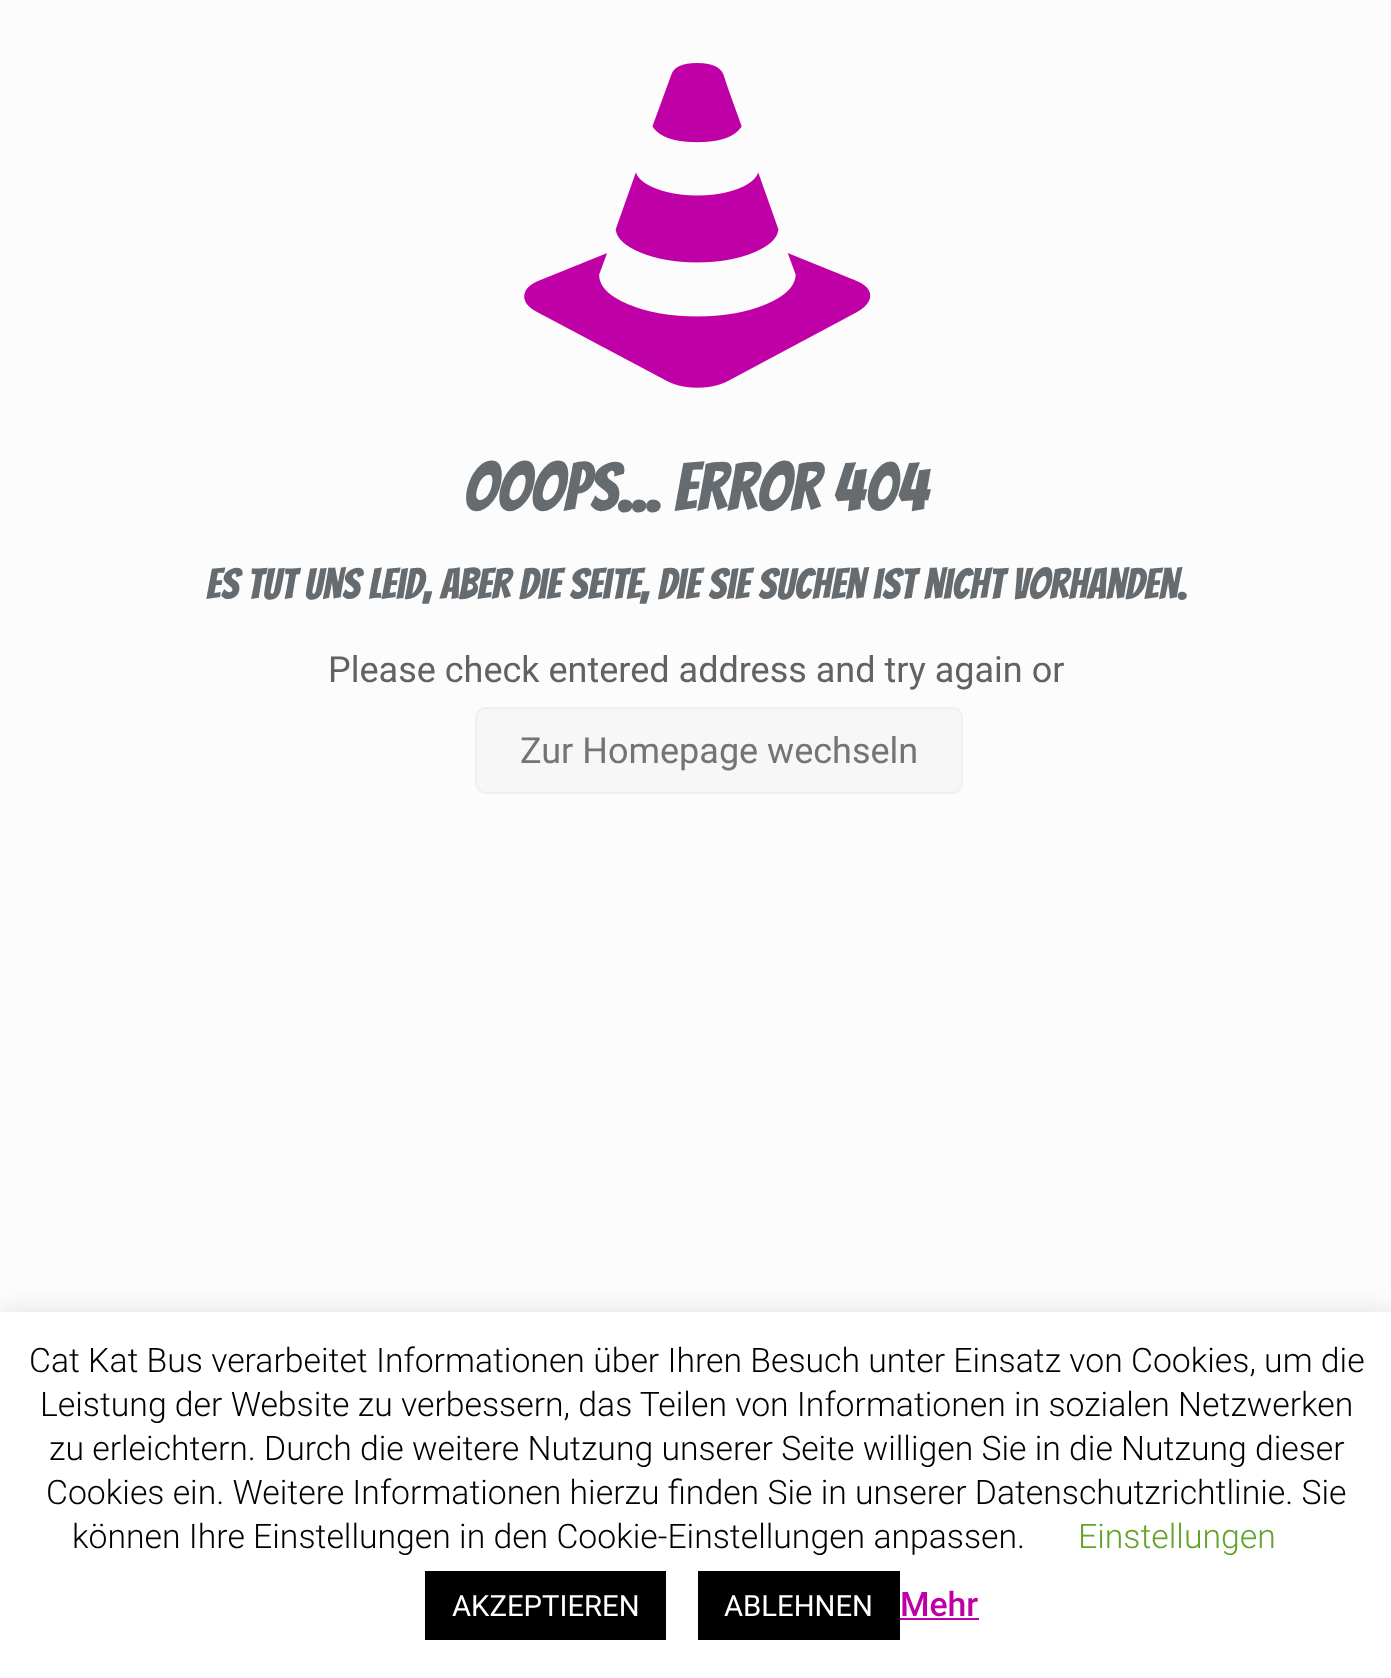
<svg xmlns="http://www.w3.org/2000/svg" width="1391" height="1678">
<style>
.a{font:67.5px Bangers;fill:#656b6f}
.b{font:42.75px Bangers;fill:#656b6f}
.c{font:36px Roboto;fill:#626262}
.d{font:36px Roboto;fill:#747474}
.e{font:300 33.75px Roboto;fill:#000}
.f{font:300 33.75px Roboto;fill:#62a329}
.g{font:29.25px Roboto;fill:#fff}
.h{font:500 33.75px Roboto;fill:#c000a7}
</style>
<rect width="100%" height="100%" fill="#fcfcfc"/>
<image href="1.png" x="524" y="63" width="347" height="325"/>
<rect fill="#f7f7f7" stroke="#f0f0f0" stroke-width="2" x="476" y="708" width="486" height="85" rx="10"/>
<path fill="#acabab4d" filter="blur(11px)" d="M0 1310h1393v366H0z"/>
<path fill="#fff" d="M0 1312h1391v366H0z"/>
<path fill="#000" d="M425 1571h241v69H425z"/>
<path fill="#000" d="M698 1571h202v69H698z"/>
<path fill="#c000a7" d="M900 1618h79v2H900z"/>
<text class="a" x="464" y="511">Ooops... Error 404</text>
<text class="b" x="206" y="599">Es tut uns leid, aber die Seite, die Sie suchen ist nicht vorhanden.</text>
<text class="c" x="328" y="682">Please check entered address and try again or</text>
<text class="d" x="520" y="763">Zur Homepage wechseln</text>
<text class="e" x="29" y="1372">Cat Kat Bus verarbeitet Informationen über Ihren Besuch unter Einsatz von Cookies, um die</text>
<text class="e" x="40" y="1416">Leistung der Website zu verbessern, das Teilen von Informationen in sozialen Netzwerken</text>
<text class="e" x="49" y="1460">zu erleichtern. Durch die weitere Nutzung unserer Seite willigen Sie in die Nutzung dieser</text>
<text class="e" x="46" y="1504">Cookies ein. Weitere Informationen hierzu finden Sie in unserer Datenschutzrichtlinie. Sie</text>
<text class="e" x="72" y="1548">können Ihre Einstellungen in den Cookie-Einstellungen anpassen.</text>
<text class="f" x="1078" y="1548">Einstellungen</text>
<text class="g" x="452" y="1616">AKZEPTIEREN</text>
<text class="g" x="724" y="1616">ABLEHNEN</text>
<text class="h" x="900" y="1616">Mehr</text>
</svg>
